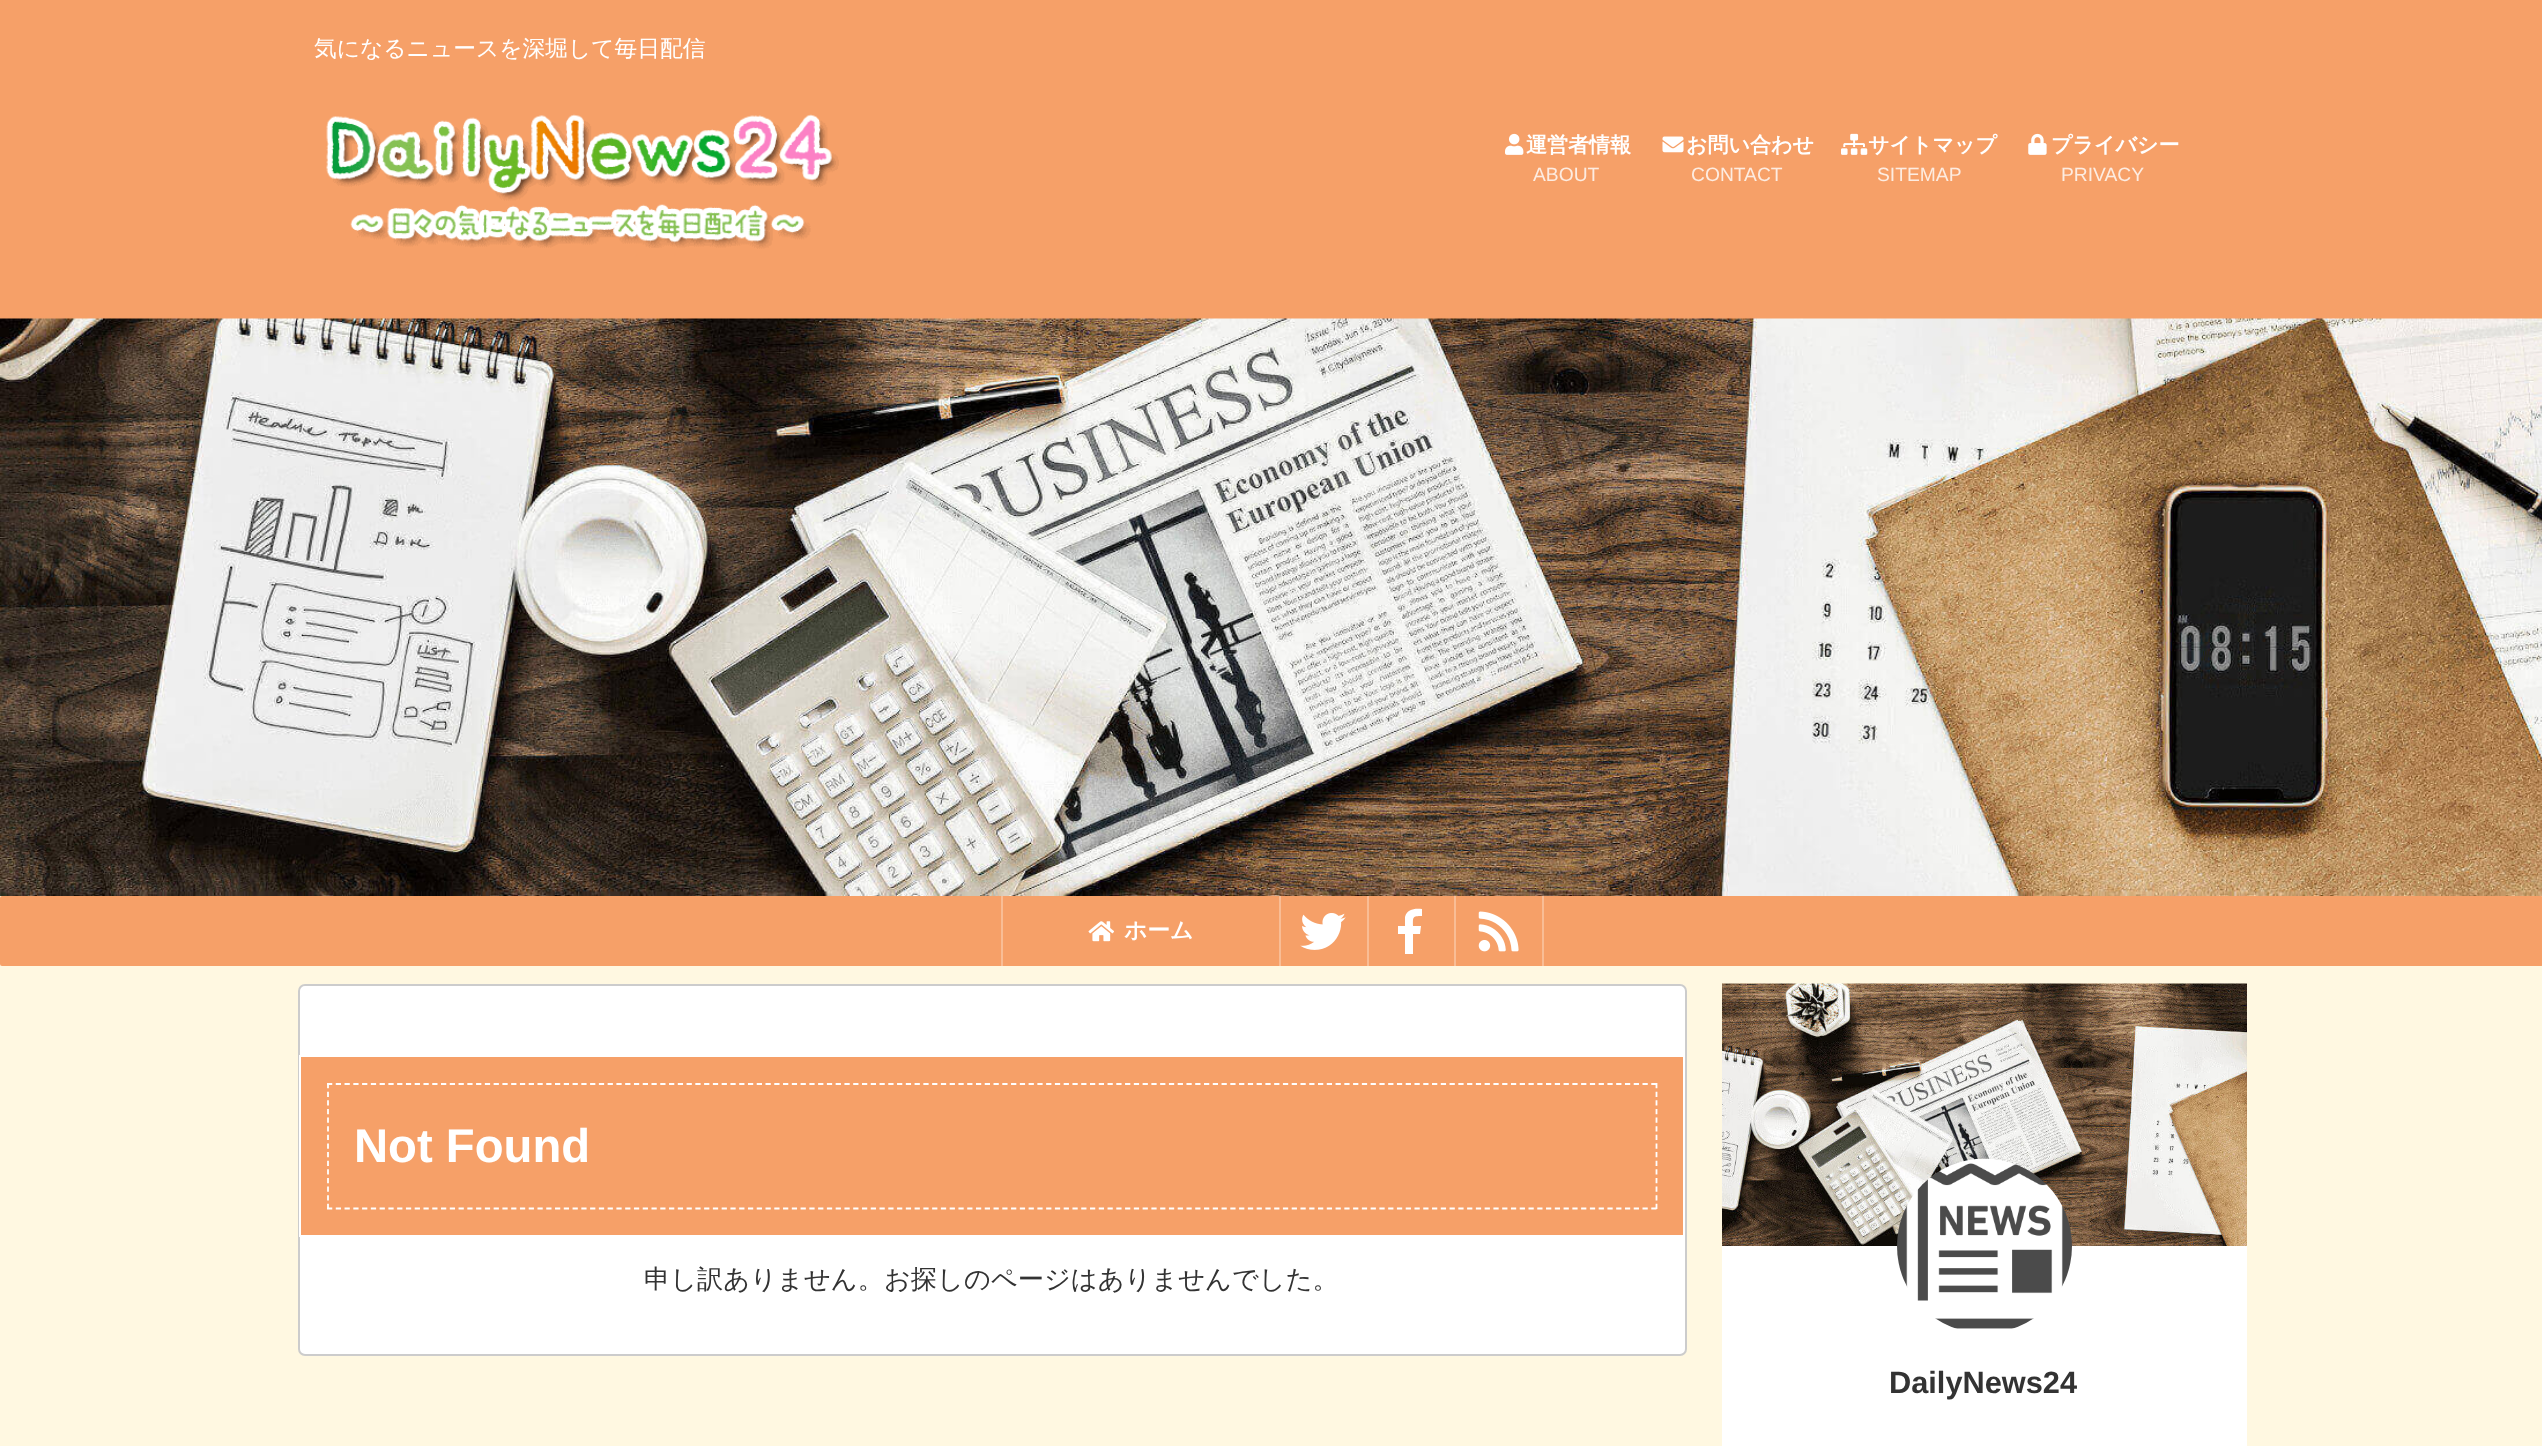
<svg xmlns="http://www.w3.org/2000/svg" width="2542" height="1446">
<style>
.a{font:500 22.75px WenQuanYi Zen Hei;fill:#fff}
.b{font:bold 21px WenQuanYi Zen Hei;fill:#fff}
.c{font:19.25px Liberation Sans;fill:#fdece1}
.d{font:bold 22.75px WenQuanYi Zen Hei;fill:#fff}
.e{font:bold 47.25px Liberation Sans;fill:#fff}
.f{font:500 26.25px WenQuanYi Zen Hei;fill:#333}
.g{font:bold 30.75px Liberation Sans;fill:#333}
</style>
<rect width="100%" height="100%" fill="#fff8e1"/>
<path fill="#f6a068" d="M0 0h2542v319H0z"/>
<image href="1.png" x="326" y="114" width="513" height="135"/>
<image href="2.png" x="1505" y="133" width="19" height="22"/>
<image href="3.png" x="1662" y="136" width="22" height="17"/>
<image href="4.png" x="1841" y="133" width="27" height="22"/>
<image href="5.png" x="2028" y="133" width="19" height="22"/>
<image href="6.png" x="0" y="318" width="2542" height="578"/>
<rect fill="#f6a068" y="896" width="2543" height="70" rx="2"/>
<path fill="#f9bd95" d="M1279 896h2v70H1279z"/>
<path fill="#f9bd95" d="M1001 896h2v70H1001z"/>
<image href="7.png" x="1088" y="921" width="26" height="21"/>
<path fill="#f9bd95" d="M1367 896h2v70H1367z"/>
<image href="8.png" x="1300" y="913" width="46" height="37"/>
<path fill="#f9bd95" d="M1454 896h2v70H1454z"/>
<path fill="#fff" d="M1405 954v-20h-7v-8h7v-9c2-8 10-9 17-8v7c-10 0-9 1-9 10h8l-1 8h-7v20z"/>
<path fill="#f9bd95" d="M1542 896h2v70H1542z"/>
<image href="9.png" x="1478" y="911" width="41" height="41"/>
<rect fill="#fff" stroke="#ccc" stroke-width="2" x="299" y="985" width="1387" height="370" rx="6"/>
<path fill="#f6a068" stroke="#fff" stroke-width="2" d="M300 1056h1384v180H300z"/>
<path fill="none" stroke="#fff" stroke-width="1.8" stroke-dasharray="5.25 3.52" d="M327 1084h1330"/>
<path fill="none" stroke="#fff" stroke-width="1.8" stroke-dasharray="5.25 3.38" d="M1656.5 1083v126"/>
<path fill="none" stroke="#fff" stroke-width="1.8" stroke-dasharray="5.25 3.52" d="M327 1208.5h1330"/>
<path fill="none" stroke="#fff" stroke-width="1.8" stroke-dasharray="5.25 3.38" d="M328 1083v126"/>
<path fill="#fff" d="M1722 1246h525v200H1722z"/>
<image href="10.png" x="1722" y="983" width="525" height="263"/>
<image href="11.png" x="1897" y="1158" width="175" height="171"/>
<text class="a" x="314" y="56">気になるニュースを深堀して毎日配信</text>
<text class="b" x="1526" y="152">運営者情報</text>
<text class="c" x="1533" y="181">ABOUT</text>
<text class="b" x="1686" y="152">お問い合わせ</text>
<text class="c" x="1691" y="181">CONTACT</text>
<text class="b" x="1868" y="152">サイトマップ</text>
<text class="c" x="1877" y="181">SITEMAP</text>
<text class="b" x="2051" y="152">プライバシー</text>
<text class="c" x="2061" y="181">PRIVACY</text>
<text class="d" x="1124" y="938">ホーム</text>
<text class="e" x="354" y="1162">Not Found</text>
<text class="f" x="644" y="1288">申し訳ありません。お探しのページはありませんでした。</text>
<text class="g" x="1889" y="1393">DailyNews24</text>
</svg>
